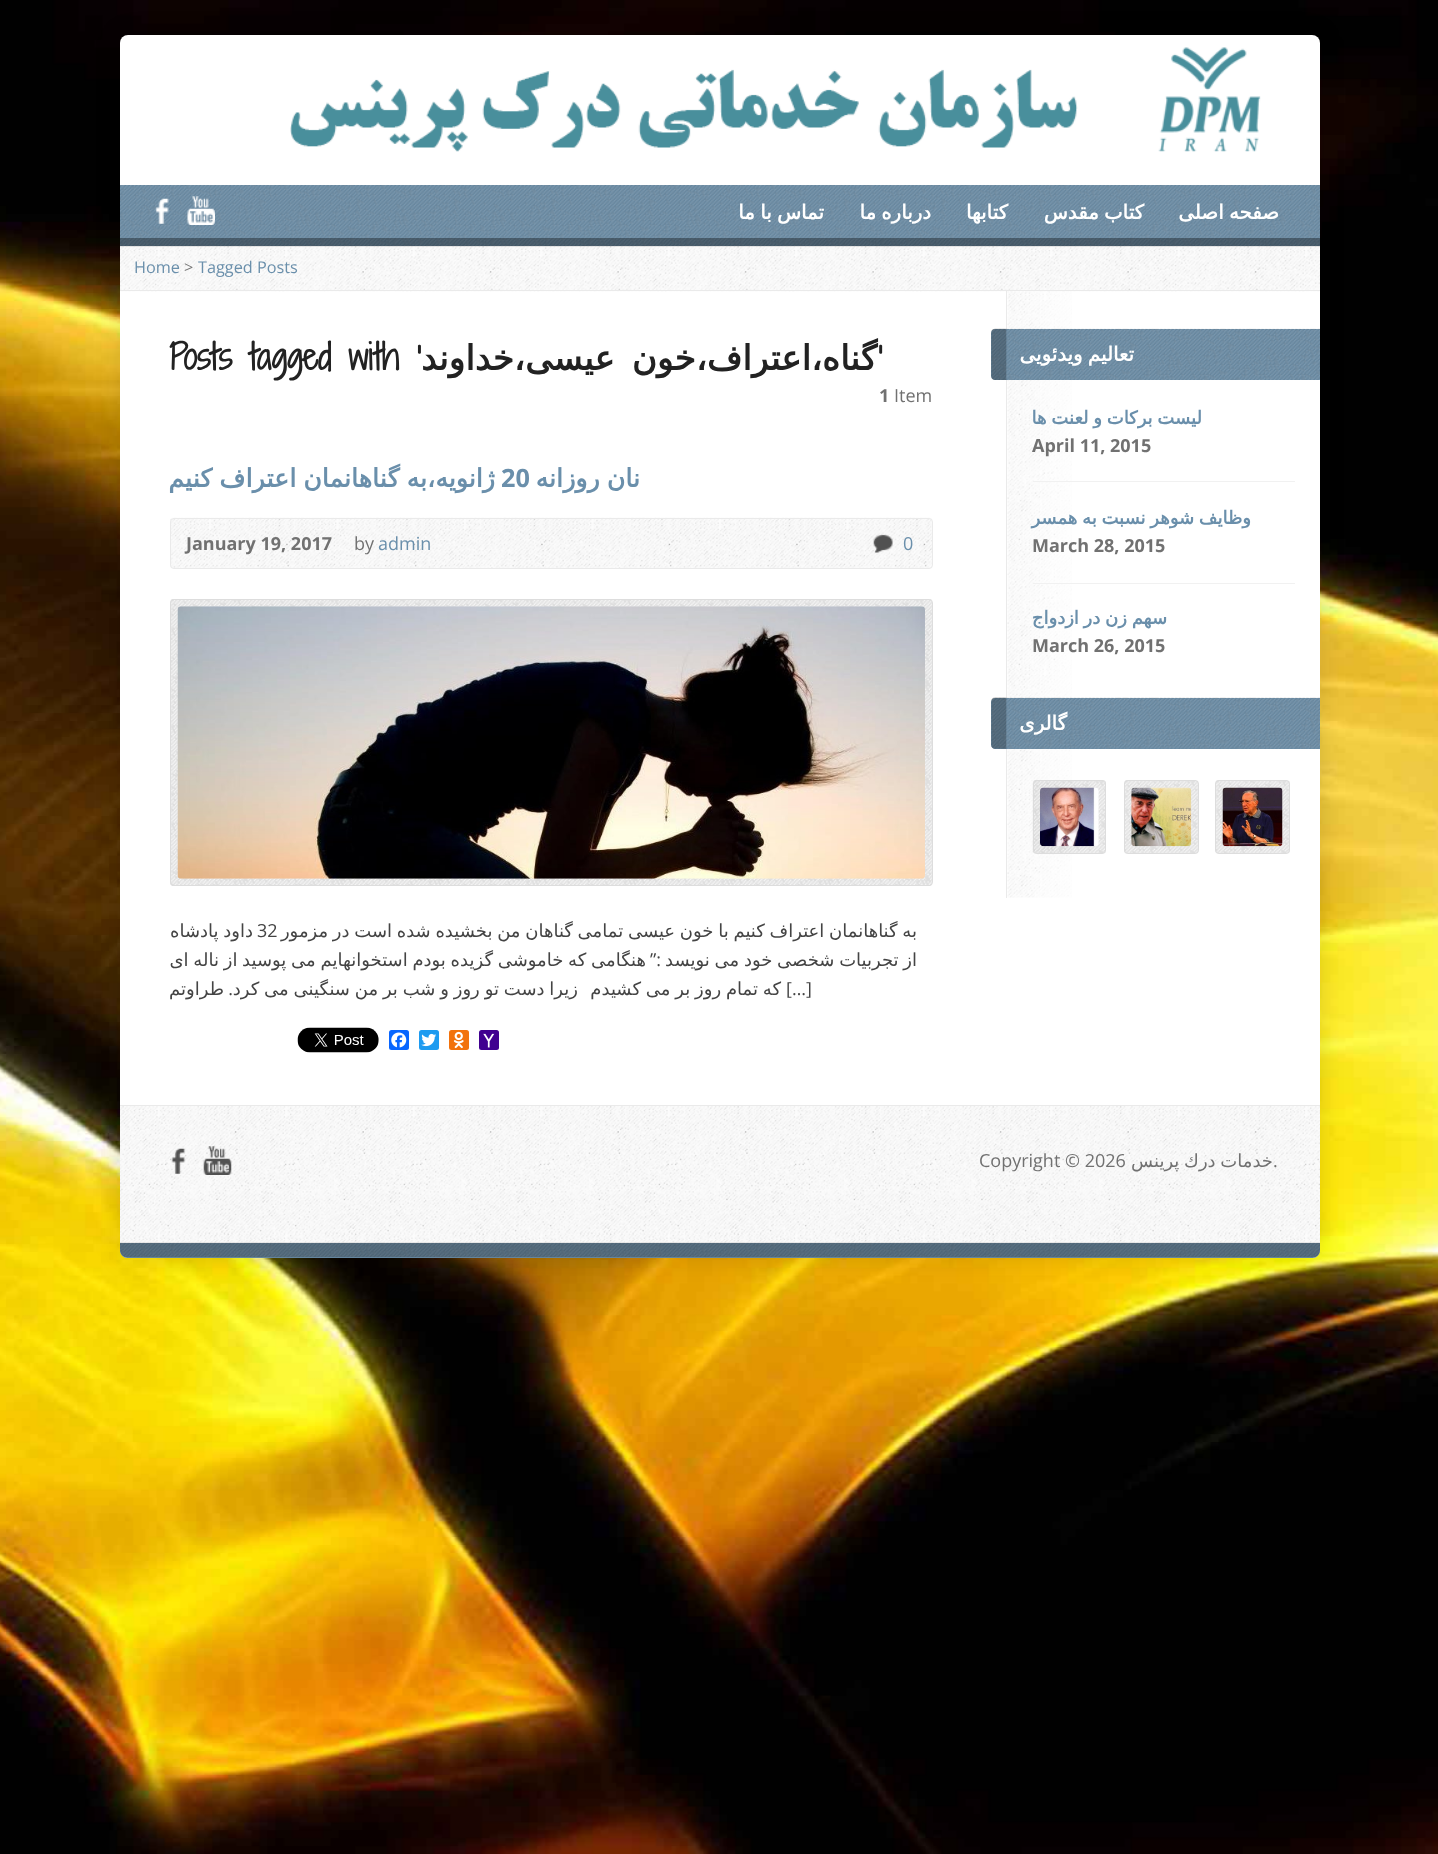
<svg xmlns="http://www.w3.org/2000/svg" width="1438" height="1854">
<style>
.a{font:bold 19.75px DejaVu Sans;direction:rtl;fill:#fff}
.b{font:16.25px Open Sans;fill:#6a8fab}
.c{font:16.25px Open Sans;fill:#777}
.d{font:bold 18px DejaVu Sans;direction:rtl;fill:#6a8fab}
.e{font:bold 18px Open Sans;fill:#717171}
.f{font:bold 34.25px Shadows Into Light Two;fill:#222}
.g{font:bold 34.25px DejaVu Sans;direction:rtl;fill:#222}
.h{font:18px Open Sans;fill:#717171}
.i{font:bold 25.25px DejaVu Sans;direction:rtl;fill:#6a8fab}
.j{font:bold 25.25px Open Sans;fill:#6a8fab}
.k{font:18px Open Sans;fill:#6a8fab}
.l{font:18px DejaVu Sans;direction:rtl;fill:#444}
.m{font:18px Open Sans;fill:#444}
.n{font:18px Open Sans;direction:rtl;fill:#444}
.o{font:18px DejaVu Sans;direction:rtl;fill:#717171}
</style>
<rect width="100%" height="100%" fill="#fff"/>
<image href="1.png" x="0" y="0" width="1438" height="1854"/>
<rect fill="#0000001f" filter="blur(12.5px)" x="120" y="35" width="1200" height="1223" rx="8"/>
<rect fill="#fff" x="120" y="35" width="1200" height="1223" rx="8"/>
<image href="2.png" x="290" y="47" width="971" height="105"/>
<path fill="#6a8fab" d="M120 185h1200v61H120z"/>
<image href="3.png" x="120" y="185" width="1200" height="62"/>
<image href="4.png" x="187" y="196" width="28" height="29"/>
<image href="5.png" x="155" y="198" width="14" height="26"/>
<path fill="#00000059" d="M120 238h1200v9H120z"/>
<image href="6.png" x="120" y="246" width="1200" height="46"/>
<path fill="#eaeaea" d="M120 290h1200v1H120z"/>
<image href="7.png" x="1007" y="291" width="65" height="607"/>
<path fill="#eaeaea" d="M1006 291h1v607H1006z"/>
<path fill="#6a8fab" d="M995 329h325v51h-325c-2 0-4-2-4-4v-43c0-2 2-4 4-4z"/>
<image href="8.png" x="991" y="328" width="329" height="52"/>
<path fill="#f1f1f1" d="M1033 481h262v1H1033z"/>
<path fill="#f1f1f1" d="M1033 583h262v1H1033z"/>
<path fill="#6a8fab" d="M995 698h325v51h-325c-2 0-4-2-4-4v-43c0-2 2-4 4-4z"/>
<image href="9.png" x="991" y="697" width="329" height="52"/>
<image href="10.png" x="1215" y="780" width="75" height="74"/>
<rect fill="none" stroke="#ddd" x="1215.5" y="780.5" width="74" height="73" rx="3.5"/>
<image href="11.png" x="1222" y="787" width="61" height="60"/>
<image href="12.png" x="1124" y="780" width="75" height="74"/>
<rect fill="none" stroke="#ddd" x="1124.5" y="780.5" width="74" height="73" rx="3.5"/>
<image href="13.png" x="1131" y="787" width="61" height="60"/>
<image href="14.png" x="1032" y="780" width="74" height="74"/>
<rect fill="none" stroke="#ddd" x="1033.5" y="780.5" width="72" height="73" rx="3.5"/>
<image href="15.png" x="1040" y="787" width="59" height="60"/>
<image href="16.png" x="170" y="517" width="763" height="52"/>
<rect fill="none" stroke="#eaeaea" x="170.5" y="518.5" width="762" height="50" rx="3.5"/>
<image href="17.png" x="873" y="534" width="20" height="19"/>
<image href="18.png" x="170" y="599" width="763" height="287"/>
<rect fill="none" stroke="#ddd" x="170.5" y="599.5" width="762" height="286" rx="3.5"/>
<image href="19.png" x="177" y="606" width="748" height="273"/>
<rect fill="#400090" x="479" y="1030" width="20" height="20" rx="2.5"/>
<image href="20.png" x="483" y="1033" width="12" height="15"/>
<rect fill="#f2720c" x="449" y="1030" width="20" height="20" rx="2.5"/>
<image href="21.png" x="453" y="1031" width="11" height="18"/>
<rect fill="#1d9bf0" x="419" y="1030" width="20" height="20" rx="2.5"/>
<image href="22.png" x="421" y="1033" width="16" height="14"/>
<rect fill="#0866ff" x="389" y="1030" width="20" height="20" rx="2.5"/>
<image href="23.png" x="391" y="1032" width="16" height="16"/>
<image href="24.png" x="297" y="1027" width="82" height="26"/>
<image href="25.png" x="120" y="1106" width="1200" height="137"/>
<path fill="#eaeaea" d="M120 1105h1200v1H120z"/>
<image href="26.png" x="203" y="1146" width="29" height="29"/>
<image href="27.png" x="171" y="1148" width="15" height="26"/>
<path fill="#6a8fab" d="M120 1243h1200v7.5c0 4-3.5 7.5-7.5 7.5h-1185c-4 0-7.5-3.5-7.5-7.5z"/>
<image href="28.png" x="120" y="1242" width="1200" height="16"/>
<text class="a" x="1279" y="219" word-spacing="-1">صفحه اصلی</text>
<text class="a" x="1144" y="219" word-spacing="-1">کتاب مقدس</text>
<text class="a" x="1008" y="219">کتابها</text>
<text class="a" x="931" y="219" word-spacing="-1">درباره ما</text>
<text class="a" x="824" y="219" word-spacing="-1">تماس با ما</text>
<text class="b" x="198" y="273">Tagged Posts</text>
<text class="c" x="184" y="273">&gt;</text>
<text class="b" x="134" y="273">Home</text>
<text class="a" x="1134" y="361" word-spacing="-1">تعالیم ویدئویی</text>
<text class="d" x="1202" y="424" word-spacing="-1">لیست برکات و لعنت ها</text>
<text class="e" x="1032" y="452">April 11, 2015</text>
<text class="d" x="1251" y="524" word-spacing="-1">وظایف شوهر نسبت به همسر</text>
<text class="e" x="1032" y="552">March 28, 2015</text>
<text class="d" x="1167" y="624" word-spacing="-1">سهم زن در ازدواج</text>
<text class="e" x="1032" y="652">March 26, 2015</text>
<text class="a" x="1067" y="730">گالری</text>
<text class="f" x="877" y="370">’</text>
<text class="g" x="877" y="370" word-spacing="6">گناه،اعتراف،خون عیسی،خداوند</text>
<text class="f" x="169" y="370">Posts tagged with ‘</text>
<text class="h" x="894" y="402">Item</text>
<text class="e" x="879" y="402">1</text>
<text class="i" x="640" y="487" word-spacing="-1">نان روزانه</text>
<text class="j" x="501" y="487">20</text>
<text class="i" x="495" y="487" word-spacing="-1">ژانویه،به گناهانمان اعتراف کنیم</text>
<text class="k" x="903" y="550">0</text>
<text class="k" x="378" y="550">admin</text>
<text class="h" x="354" y="550">by</text>
<text class="e" x="186" y="550">January 19, 2017</text>
<text class="l" x="917" y="937" word-spacing="-1">به گناهانمان اعتراف کنیم با خون عیسی تمامی گناهان من بخشیده شده است در مزمور</text>
<text class="m" x="257" y="937">32</text>
<text class="l" x="253" y="937" word-spacing="-1">داود پادشاه</text>
<text class="l" x="917" y="966" word-spacing="-1">از تجربیات شخصی خود می نویسد</text>
<text class="l" x="646" y="966" word-spacing="-1">هنگامی که خاموشی گزیده بودم استخوانهایم می پوسید از ناله ای</text>
<text class="n" x="661" y="966">:”</text>
<text class="m" x="786" y="995">[…]</text>
<text class="l" x="781" y="995" word-spacing="-0.9">که تمام روز بر می کشیدم</text>
<text class="l" x="578" y="995" word-spacing="-0.9">زیرا دست تو روز و شب بر من سنگینی می کرد</text>
<text class="n" x="233" y="995">.</text>
<text class="l" x="224" y="995">طراوتم</text>
<text class="o" x="1273" y="1167" word-spacing="-1">خدمات درك پرينس</text>
<text class="h" x="1273" y="1167">.</text>
<text class="h" x="979" y="1167">Copyright © 2026</text>
</svg>
